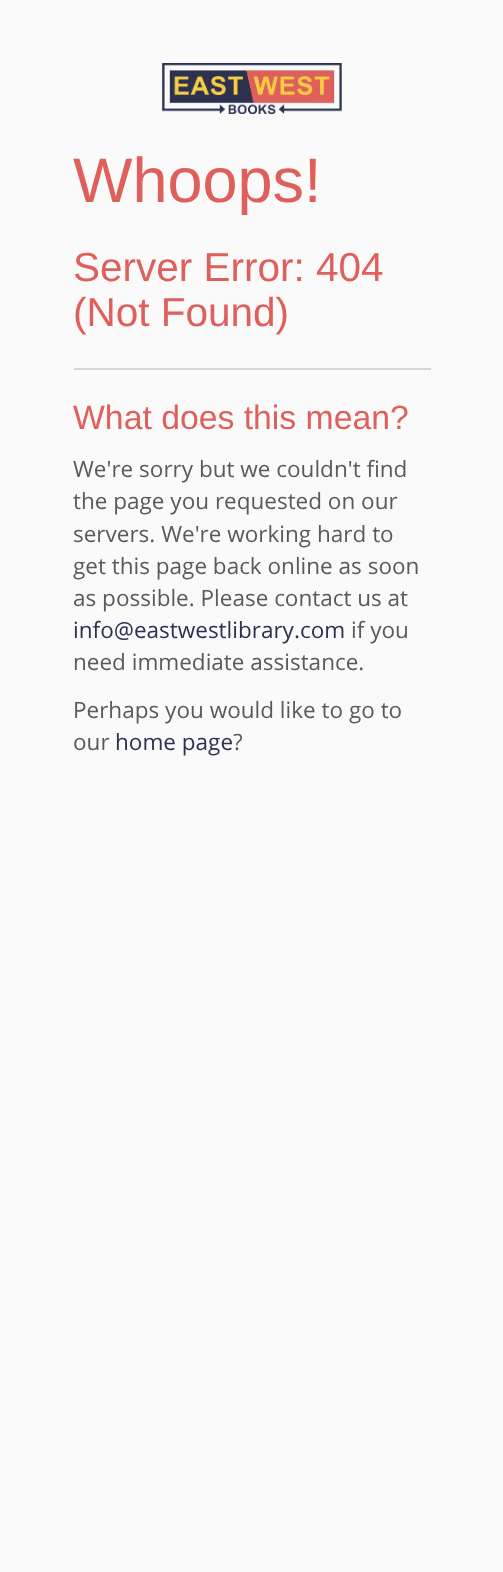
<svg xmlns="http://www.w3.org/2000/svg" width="503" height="1572">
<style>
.a{font:63px Liberation Sans;fill:#df5f5b}
.b{font:40.5px Liberation Sans;fill:#df5f5b}
.c{font:33.75px Liberation Sans;fill:#df5f5b}
.d{font:22.5px Open Sans;fill:#5a5a5a}
.e{font:22.5px Open Sans;fill:#2b314f}
</style>
<rect width="100%" height="100%" fill="#fafafa"/>
<image href="1.png" x="162" y="63" width="180" height="51"/>
<path fill="#d5d6db" d="M74 368h357v2H74z"/>
<text class="a" x="73" y="202">Whoops!</text>
<text class="b" x="73" y="281">Server Error: 404</text>
<text class="b" x="73" y="326">(Not Found)</text>
<text class="c" x="73" y="429">What does this mean?</text>
<text class="d" x="73" y="477">We're sorry but we couldn't find</text>
<text class="d" x="73" y="509">the page you requested on our</text>
<text class="d" x="73" y="542">servers. We're working hard to</text>
<text class="d" x="73" y="574">get this page back online as soon</text>
<text class="d" x="73" y="606">as possible. Please contact us at</text>
<text class="e" x="73" y="638">info@eastwestlibrary.com</text>
<text class="d" x="351" y="638">if you</text>
<text class="d" x="73" y="670">need immediate assistance.</text>
<text class="d" x="73" y="718">Perhaps you would like to go to</text>
<text class="d" x="73" y="750">our</text>
<text class="e" x="115" y="750">home page</text>
<text class="d" x="233" y="750">?</text>
</svg>
